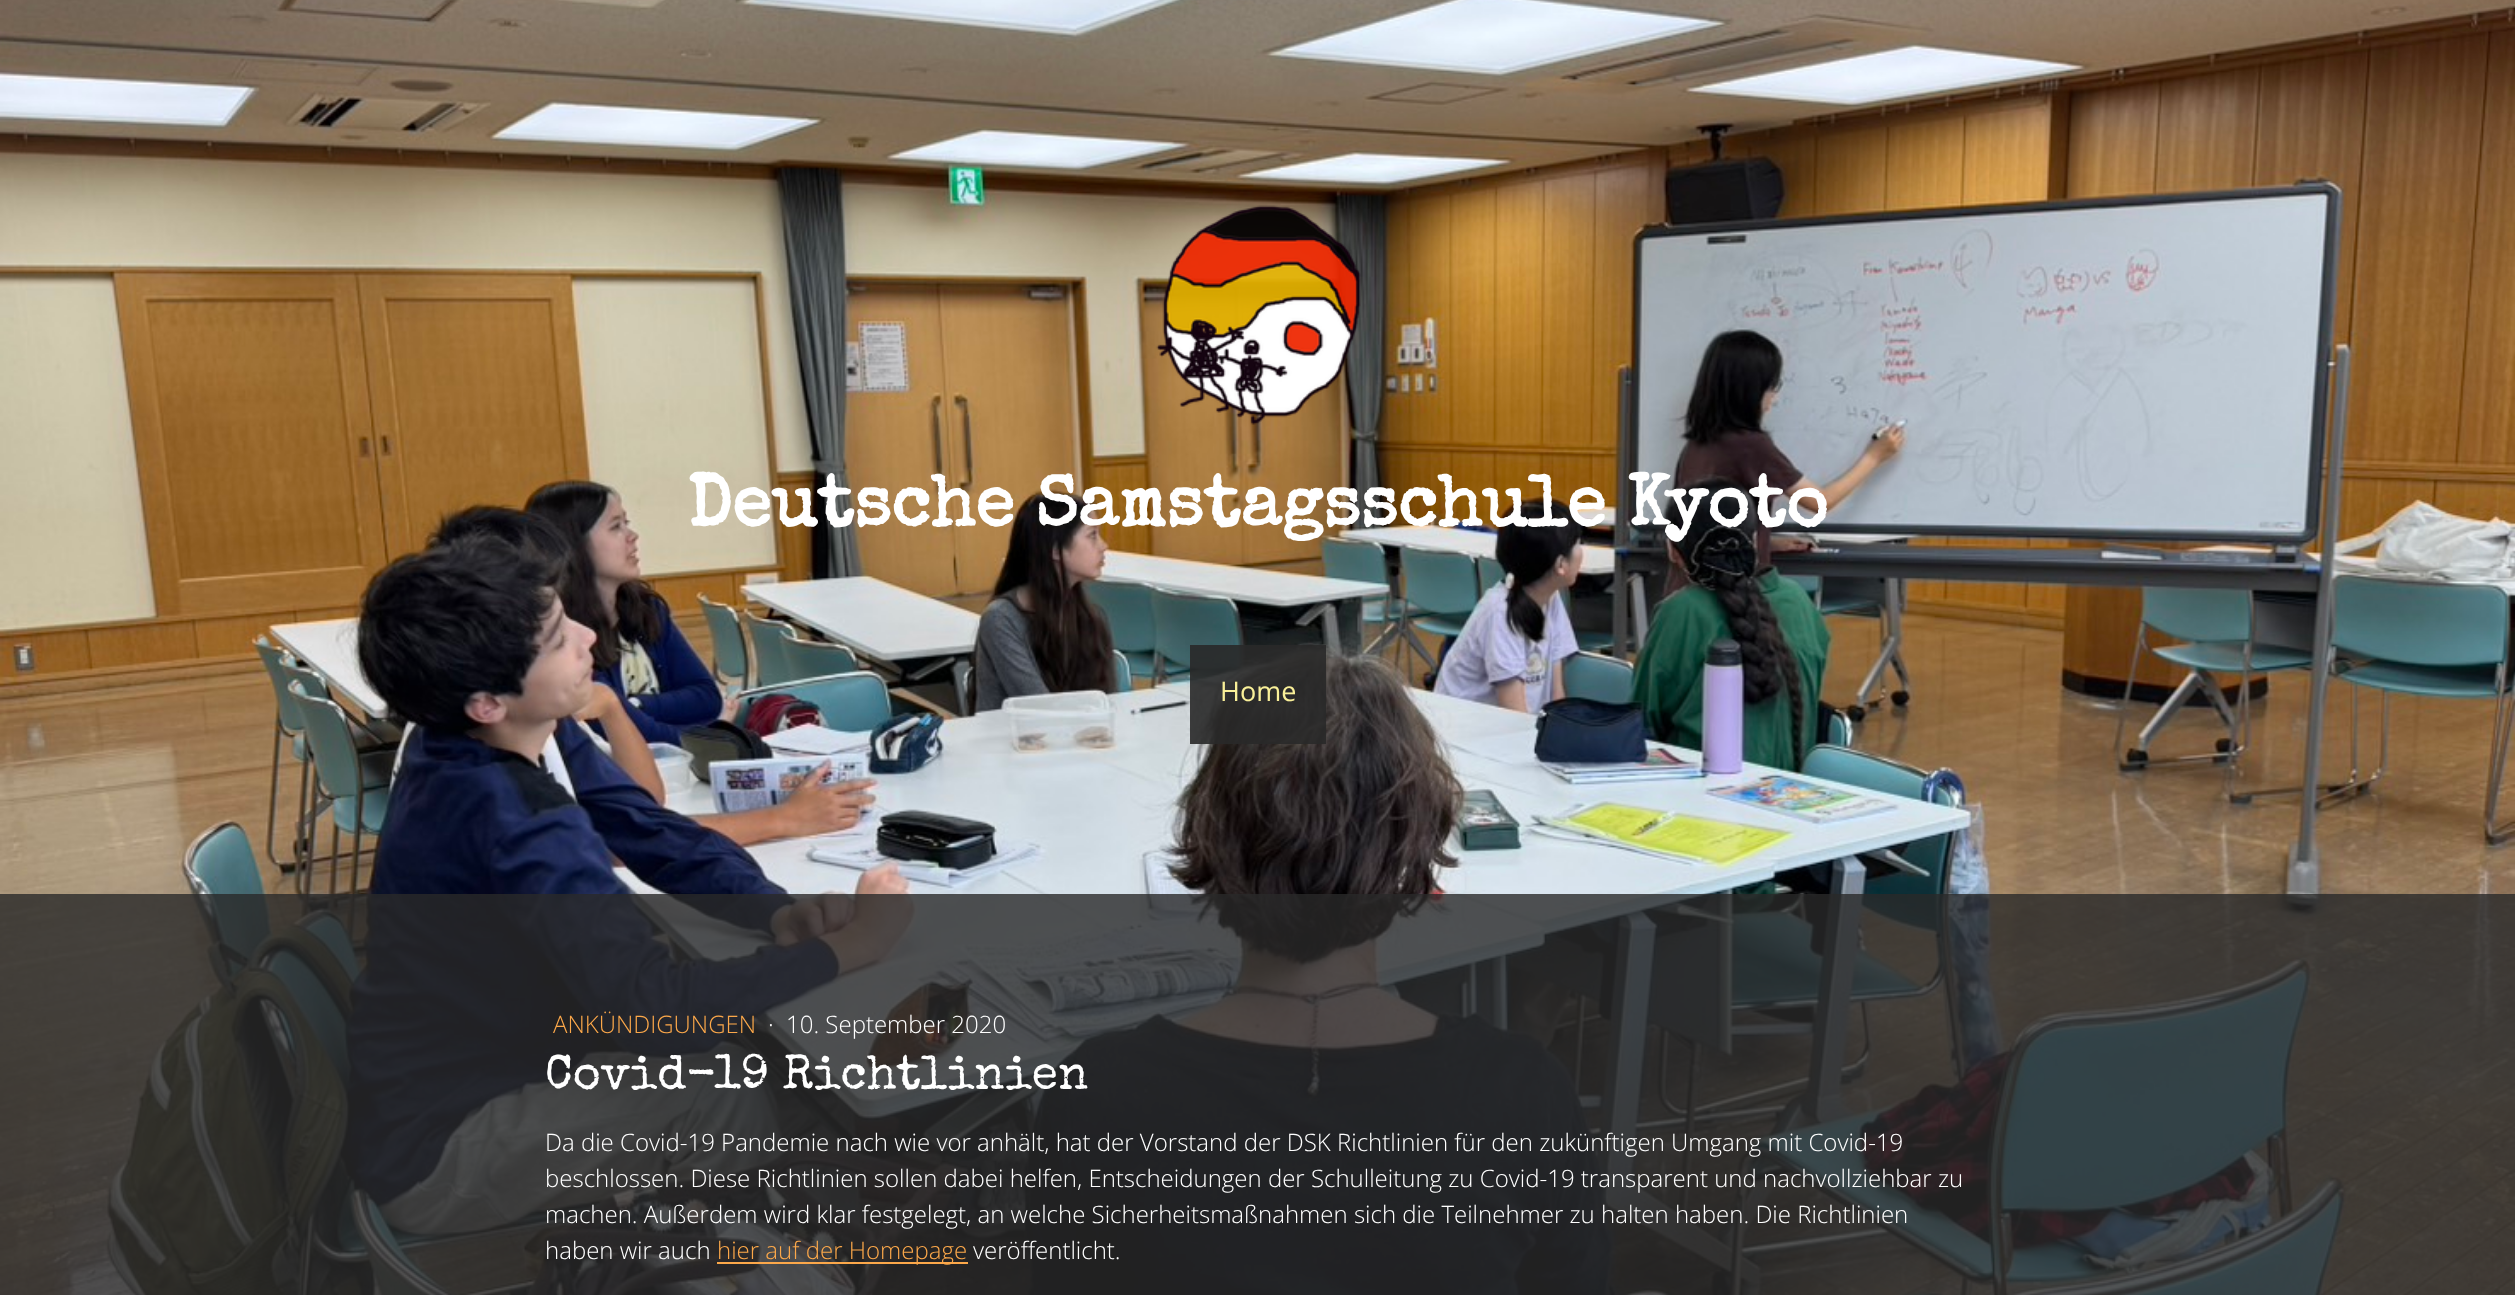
<svg xmlns="http://www.w3.org/2000/svg" width="2515" height="1295">
<style>
.a{font:bold 72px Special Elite;fill:#fff}
.b{font:27px Open Sans;fill:#faf099}
.c{font:300 24px Open Sans;fill:#fca84a}
.d{font:300 24px Open Sans;fill:#fff}
.e{font:48px Special Elite;fill:#fff}
</style>
<rect width="100%" height="100%" fill="#fff"/>
<image href="1.png" x="0" y="0" width="2515" height="1295"/>
<image href="2.png" x="1156" y="205" width="205" height="220"/>
<path fill="#292929e6" d="M1190 645h136v99H1190z"/>
<path fill="#292929cc" d="M0 894h2515v401H0z"/>
<path fill="#fca84a" d="M717 1262h251v2H717z"/>
<text class="a" x="687" y="525">Deutsche Samstagsschule Kyoto</text>
<text class="b" x="1220" y="701">Home</text>
<text class="c" x="553" y="1033">ANKÜNDIGUNGEN</text>
<text class="d" x="768" y="1033">·</text>
<text class="d" x="786" y="1033">10. September 2020</text>
<text class="e" x="545" y="1088">Covid-19 Richtlinien</text>
<text class="d" x="545" y="1151">Da die Covid-19 Pandemie nach wie vor anhält, hat der Vorstand der DSK Richtlinien für den zukünftigen Umgang mit Covid-19</text>
<text class="d" x="545" y="1187">beschlossen. Diese Richtlinien sollen dabei helfen, Entscheidungen der Schulleitung zu Covid-19 transparent und nachvollziehbar zu</text>
<text class="d" x="545" y="1223">machen. Außerdem wird klar festgelegt, an welche Sicherheitsmaßnahmen sich die Teilnehmer zu halten haben. Die Richtlinien</text>
<text class="d" x="545" y="1259">haben wir auch</text>
<text class="c" x="717" y="1259">hier auf der Homepage</text>
<text class="d" x="973" y="1259">veröffentlicht.</text>
</svg>
